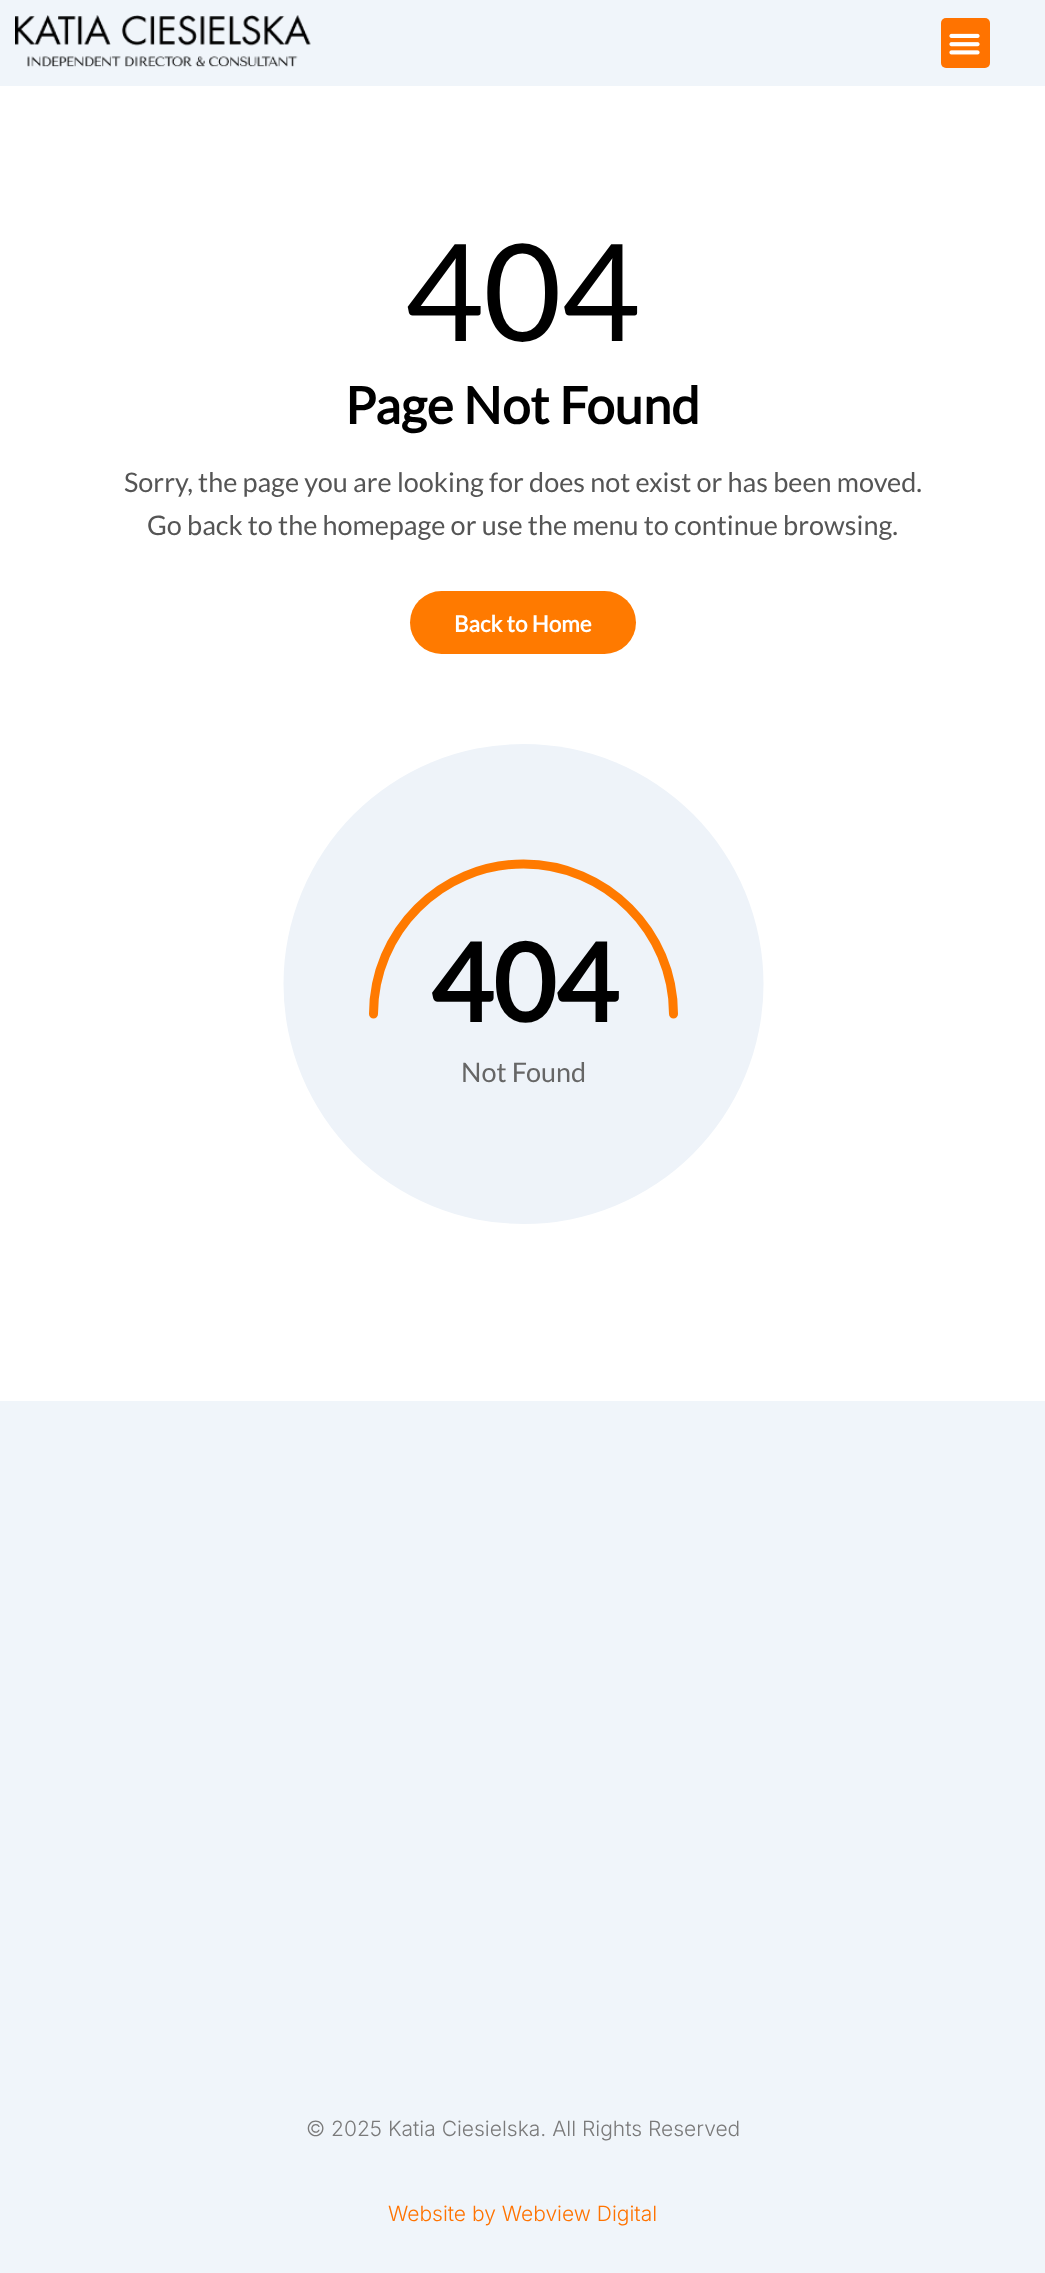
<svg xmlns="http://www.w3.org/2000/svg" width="1045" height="2273">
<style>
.a{font:135px Lato;fill:#000}
.b{font:bold 51px Lato;fill:#000}
.c{font:27px Lato;fill:#555}
.d{font:bold 22.5px Lato;fill:#fff}
.e{font:bold 108px Lato;fill:#000}
.f{font:27px Lato;fill:#666}
.g{font:300 21px Inter;fill:#7a7a7a}
.h{font:300 21px Inter;fill:#ff7300}
</style>
<rect width="100%" height="100%" fill="#f0f5fa"/>
<image href="1.png" x="15" y="15" width="296" height="52"/>
<rect fill="#ff7300" x="941" y="18" width="49" height="50" rx="5"/>
<image href="2.png" x="949" y="33" width="31" height="22"/>
<path fill="#fff" d="M0 86h1045v1315H0z"/>
<rect fill="#ff7a00" x="410" y="591" width="226" height="63" rx="31.5"/>
<circle fill="#eef3f9" cx="523.5" cy="984" r="240"/>
<path fill="none" stroke="#ff7a00" stroke-width="9" stroke-linecap="round" d="M373.5 1014c0-82.5 67.5-150 150-150c82.5 0 150 67.5 150 150"/>
<text class="a" x="405" y="341">404</text>
<text class="b" x="345" y="424">Page Not Found</text>
<text class="c" x="124" y="492">Sorry, the page you are looking for does not exist or has been moved.</text>
<text class="c" x="147" y="535">Go back to the homepage or use the menu to continue browsing.</text>
<text class="d" x="454" y="632">Back to Home</text>
<text class="e" x="430" y="1022">404</text>
<text class="f" x="461" y="1082">Not Found</text>
<text class="g" x="306" y="2136">© 2025 Katia Ciesielska. All Rights Reserved</text>
<text class="h" x="388" y="2221">Website by Webview Digital</text>
</svg>
